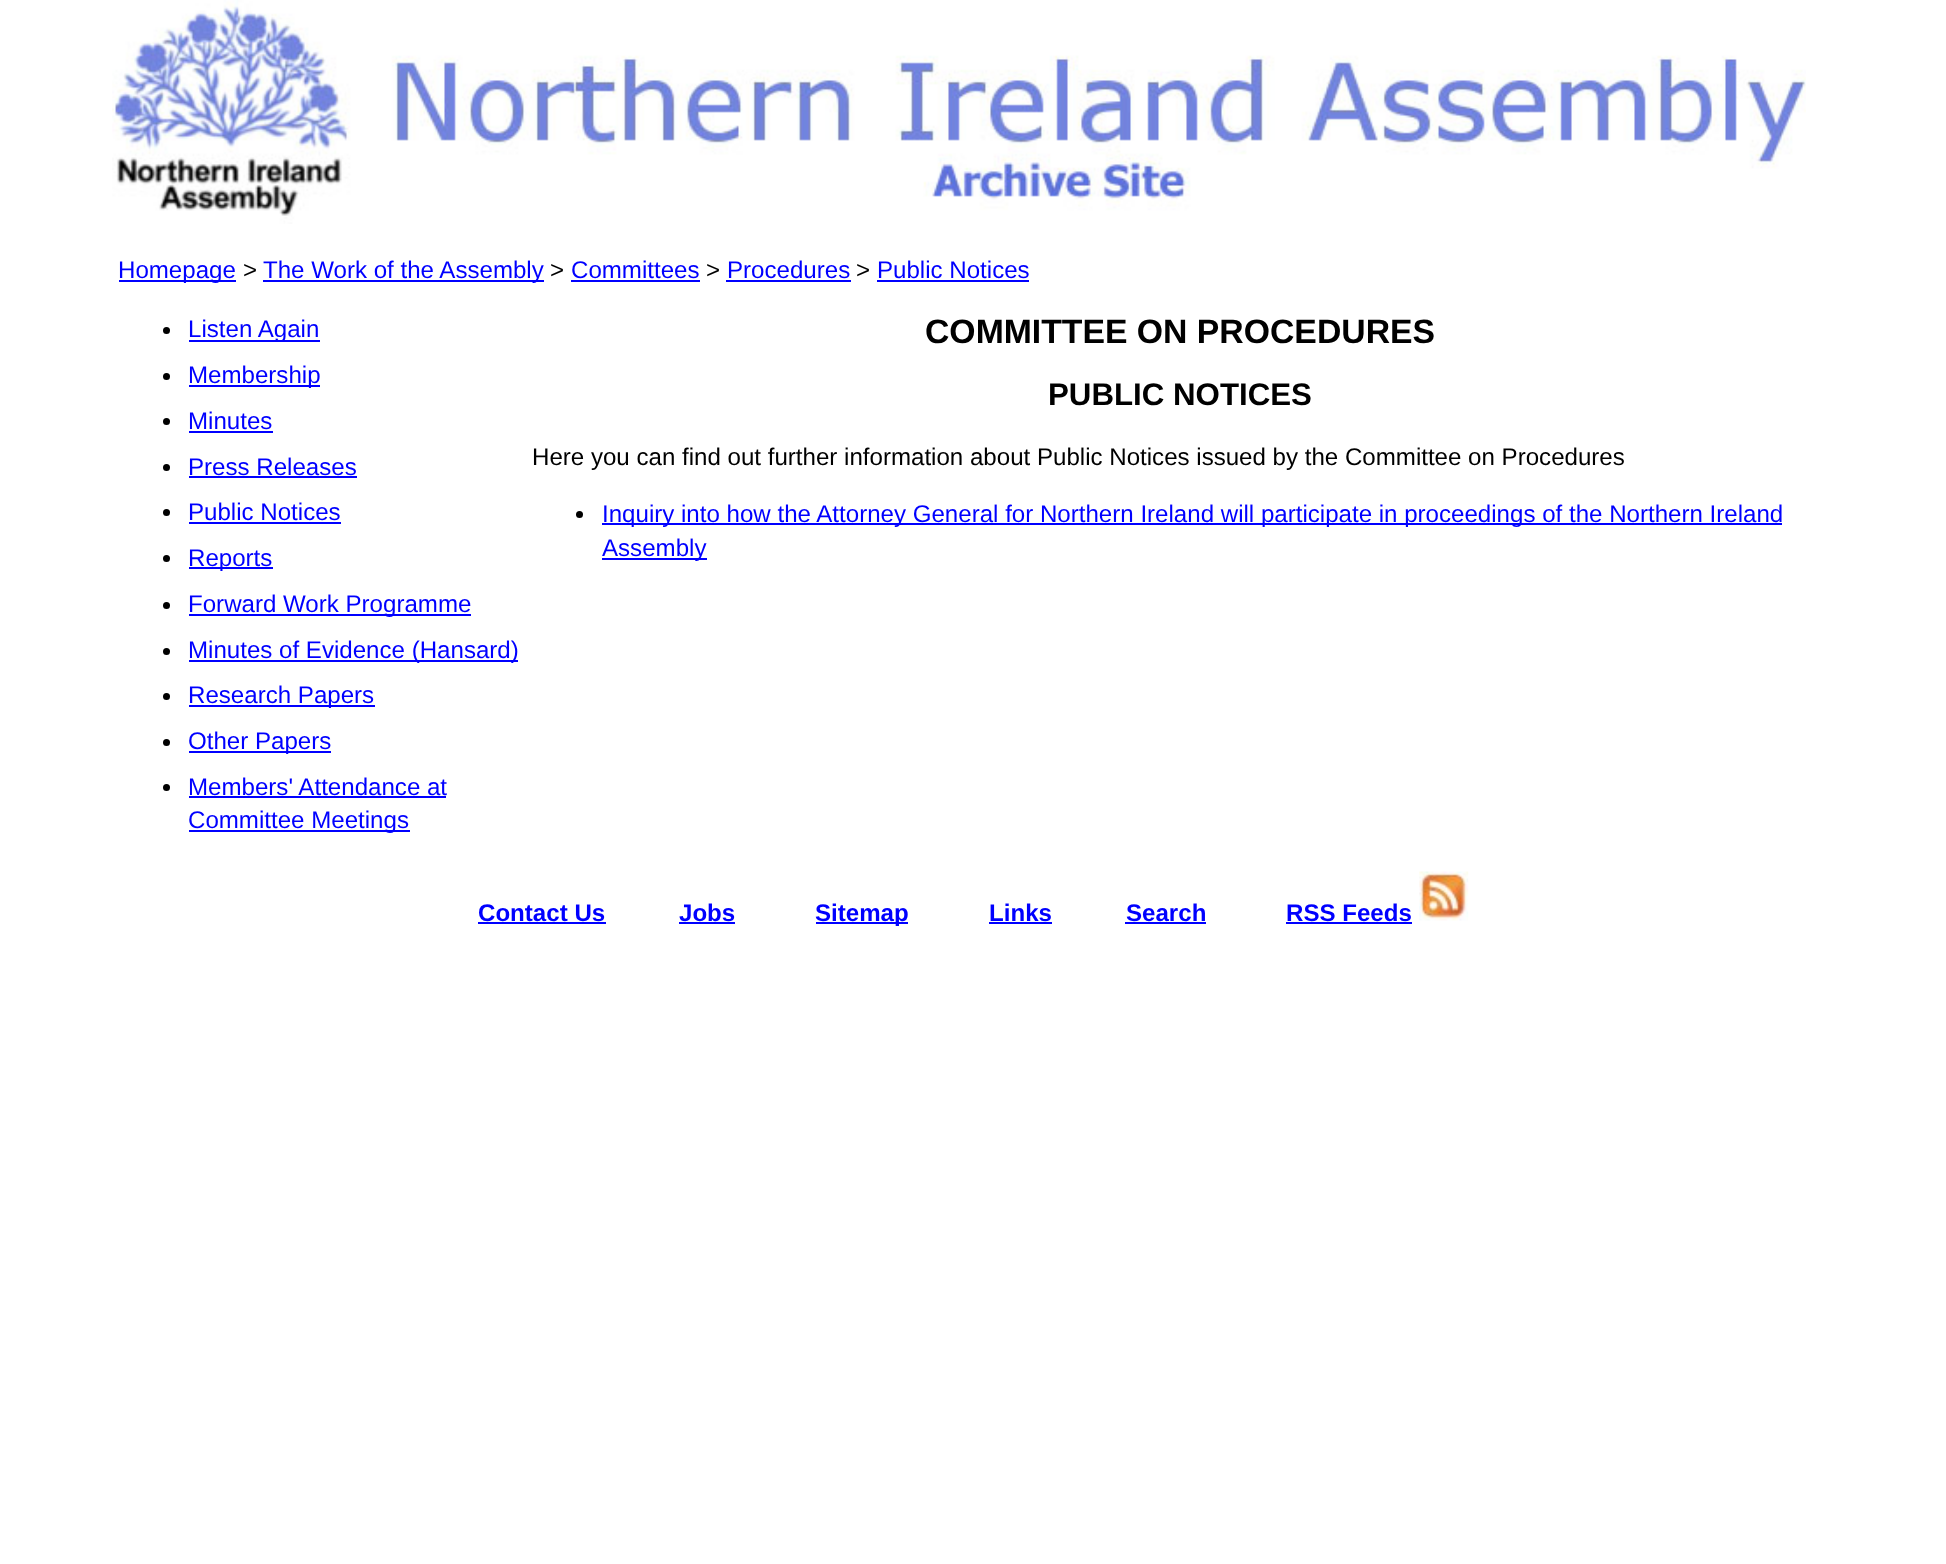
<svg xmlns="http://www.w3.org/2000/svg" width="1946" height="1564">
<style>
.a{font:24.1px Liberation Sans;fill:#00f}
.b{font:24.1px Liberation Sans;fill:#000}
.c{font:bold 33.75px Liberation Sans;fill:#000}
.d{font:bold 31.25px Liberation Sans;fill:#000}
.e{font:bold 24.1px Liberation Sans;fill:#00f}
</style>
<rect width="100%" height="100%" fill="#fff"/>
<image href="1.png" x="112" y="0" width="1694" height="224"/>
<path fill="#00f" d="M119 280h117v2H119z"/>
<path fill="#00f" d="M263 280h281v2H263z"/>
<path fill="#00f" d="M571 280h129v2H571z"/>
<path fill="#00f" d="M726 280h125v2H726z"/>
<path fill="#00f" d="M877 280h152v2H877z"/>
<circle fill="#000" cx="166.5" cy="330.5" r="3.5"/>
<path fill="#00f" d="M189 340h131v2H189z"/>
<circle fill="#000" cx="166.5" cy="376.5" r="3.5"/>
<path fill="#00f" d="M189 385h131v2H189z"/>
<circle fill="#000" cx="166.5" cy="421.5" r="3.5"/>
<path fill="#00f" d="M189 431h84v2H189z"/>
<circle fill="#000" cx="166.5" cy="467.5" r="3.5"/>
<path fill="#00f" d="M189 476h168v2H189z"/>
<circle fill="#000" cx="166.5" cy="512.5" r="3.5"/>
<path fill="#00f" d="M189 522h152v2H189z"/>
<circle fill="#000" cx="166.5" cy="558.5" r="3.5"/>
<path fill="#00f" d="M189 567h84v2H189z"/>
<circle fill="#000" cx="166.5" cy="605.5" r="3.5"/>
<path fill="#00f" d="M189 614h282v2H189z"/>
<circle fill="#000" cx="166.5" cy="651.5" r="3.5"/>
<path fill="#00f" d="M189 660h329v2H189z"/>
<circle fill="#000" cx="166.5" cy="696.5" r="3.5"/>
<path fill="#00f" d="M189 705h186v2H189z"/>
<circle fill="#000" cx="166.5" cy="742.5" r="3.5"/>
<path fill="#00f" d="M189 751h142v2H189z"/>
<circle fill="#000" cx="166.5" cy="787.5" r="3.5"/>
<path fill="#00f" d="M189 796h257v2H189z"/>
<path fill="#00f" d="M189 830h221v2H189z"/>
<circle fill="#000" cx="579.5" cy="514.5" r="3.5"/>
<path fill="#00f" d="M602 523h1180v2H602z"/>
<path fill="#00f" d="M602 558h105v2H602z"/>
<path fill="#00f" d="M478 922h128v2H478z"/>
<path fill="#00f" d="M679 922h56v2H679z"/>
<path fill="#00f" d="M816 922h92v2H816z"/>
<path fill="#00f" d="M989 922h63v2H989z"/>
<path fill="#00f" d="M1125 922h81v2H1125z"/>
<path fill="#00f" d="M1286 922h126v2H1286z"/>
<image href="2.png" x="1419" y="871" width="50" height="50"/>
<text class="a" x="118" y="278">Homepage</text>
<text class="b" x="243" y="278">&gt;</text>
<text class="a" x="263" y="278">The Work of the Assembly</text>
<text class="b" x="550" y="278">&gt;</text>
<text class="a" x="571" y="278">Committees</text>
<text class="b" x="706" y="278">&gt;</text>
<text class="a" x="727" y="278">Procedures</text>
<text class="b" x="856" y="278">&gt;</text>
<text class="a" x="877" y="278">Public Notices</text>
<text class="a" x="188" y="337">Listen Again</text>
<text class="a" x="188" y="383">Membership</text>
<text class="a" x="188" y="429">Minutes</text>
<text class="a" x="188" y="475">Press Releases</text>
<text class="a" x="188" y="520">Public Notices</text>
<text class="a" x="188" y="566">Reports</text>
<text class="a" x="188" y="612">Forward Work Programme</text>
<text class="a" x="188" y="658">Minutes of Evidence (Hansard)</text>
<text class="a" x="188" y="703">Research Papers</text>
<text class="a" x="188" y="749">Other Papers</text>
<text class="a" x="188" y="795">Members' Attendance at</text>
<text class="a" x="188" y="828">Committee Meetings</text>
<text class="c" x="925" y="343">COMMITTEE ON PROCEDURES</text>
<text class="d" x="1048" y="405">PUBLIC NOTICES</text>
<text class="b" x="532" y="465">Here you can find out further information about Public Notices issued by the Committee on Procedures</text>
<text class="a" x="602" y="522">Inquiry into how the Attorney General for Northern Ireland will participate in proceedings of the Northern Ireland</text>
<text class="a" x="602" y="556">Assembly</text>
<text class="e" x="478" y="921">Contact Us</text>
<text class="e" x="679" y="921">Jobs</text>
<text class="e" x="815" y="921">Sitemap</text>
<text class="e" x="989" y="921">Links</text>
<text class="e" x="1126" y="921">Search</text>
<text class="e" x="1286" y="921">RSS Feeds</text>
</svg>
